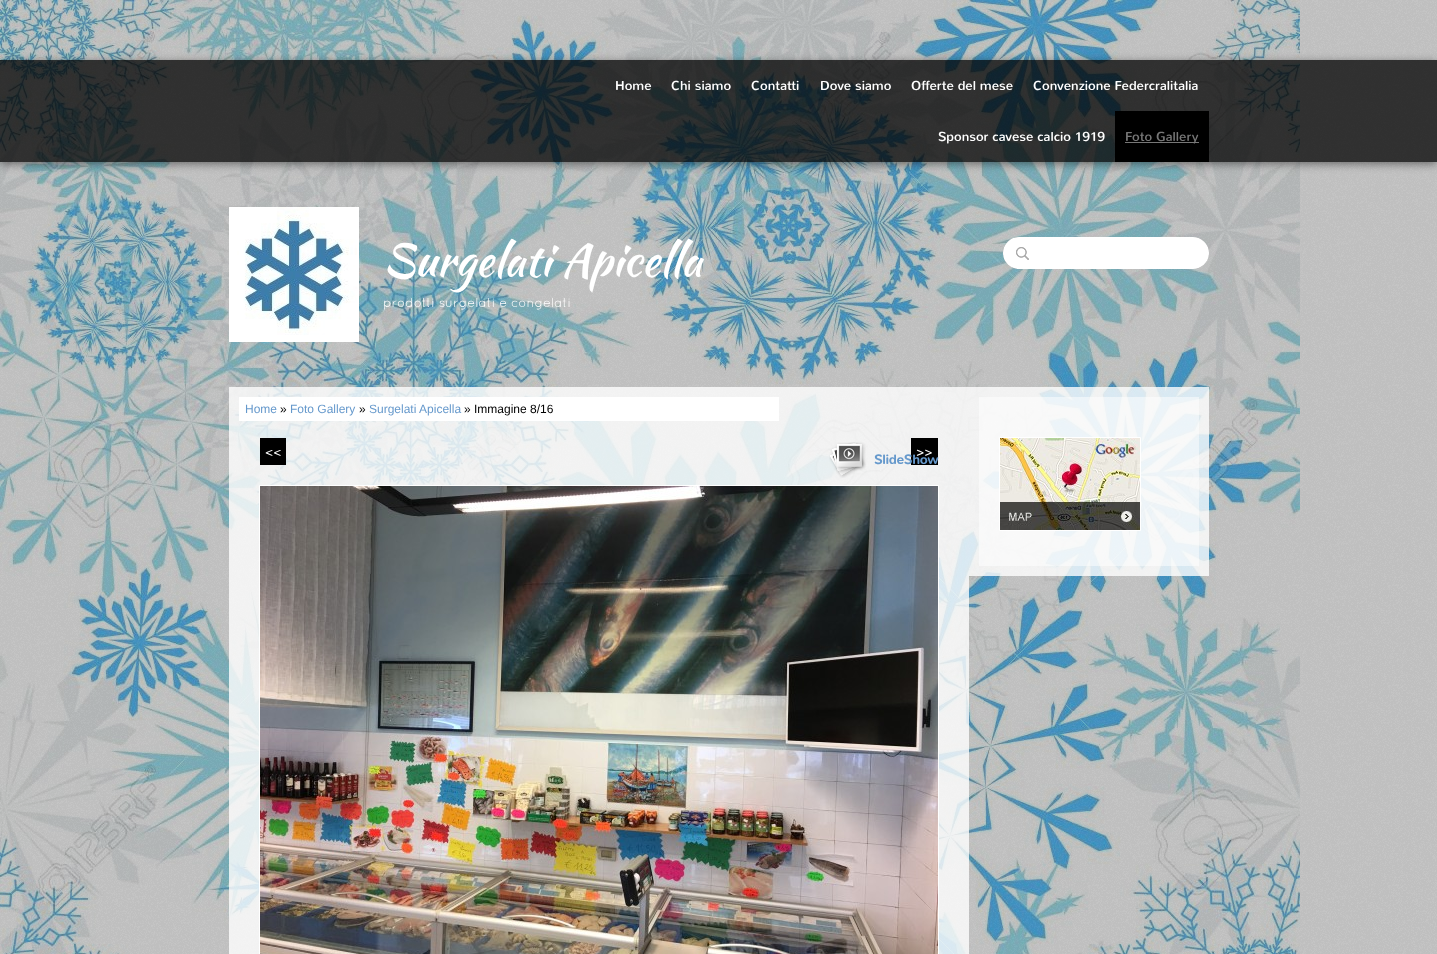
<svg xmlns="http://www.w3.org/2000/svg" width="1437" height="954">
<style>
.a{font:13px Nunito;fill:#fff}
.b{font:13px Nunito;fill:#777}
.c{font:45px Kaushan Script;fill:#fff}
.d{font:13px Quicksand;fill:#fff}
.e{font:12px Liberation Sans;fill:#69c}
.f{font:12px Liberation Sans;fill:#000}
.g{font:bold 13px Nunito;fill:#69c}
</style>
<defs>
<clipPath id="clip1"><path d="M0 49h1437v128h-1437zm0 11h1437v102h-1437z" clip-rule="evenodd"/></clipPath>
</defs>
<rect width="100%" height="100%" fill="#fff"/>
<image href="1.png" x="0" y="0" width="1300" height="954"/>
<image href="2.png" x="0" y="0" width="1437" height="954"/>
<g clip-path="url(#clip1)">
<path fill="#00000073" filter="blur(4px)" d="M0 62h1437v102H0z"/>
</g>
<path fill="#000000bf" d="M0 60h1437v102H0z"/>
<path fill="#000" d="M1115 111h94v51H1115z"/>
<path fill="#777" d="M1125 142h74v1H1125z"/>
<image href="3.png" x="229" y="207" width="130" height="135"/>
<rect fill="#33333366" filter="blur(0.5px)" x="1003" y="237" width="206" height="32" rx="16"/>
<rect fill="#fff" x="1003" y="237" width="206" height="32" rx="16"/>
<image href="4.png" x="1016" y="247" width="13" height="13"/>
<path fill="#ffffffcc" d="M229 387h740v567H229z"/>
<path fill="#fff" d="M239 397h540v24H239z"/>
<path fill="#000" d="M260 438h26v27H260z"/>
<path fill="#000" d="M911 438h27v27H911z"/>
<path fill="none" stroke="#fff" d="M259.5 485.5h679v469H259.5z"/>
<image href="5.png" x="260" y="486" width="678" height="468"/>
<image href="6.png" x="829" y="442" width="37" height="36"/>
<path fill="#ffffffcc" d="M969 387h240v189H969z"/>
<path fill="#ffffff80" d="M979 397h220v169H979z"/>
<path fill="none" stroke="#fff" d="M999.5 437.5h141v93H999.5z"/>
<image href="7.png" x="1000" y="438" width="140" height="92"/>
<text class="a" x="615" y="90">Home</text>
<text class="a" x="671" y="90">Chi siamo</text>
<text class="a" x="751" y="90">Contatti</text>
<text class="a" x="820" y="90">Dove siamo</text>
<text class="a" x="911" y="90">Offerte del mese</text>
<text class="a" x="1033" y="90">Convenzione Federcralitalia</text>
<text class="a" x="938" y="141">Sponsor cavese calcio 1919</text>
<text class="b" x="1125" y="141">Foto Gallery</text>
<text class="c" x="383" y="276">Surgelati Apicella</text>
<text class="d" x="383" y="307">prodotti surgelati e congelati</text>
<text class="e" x="245" y="413">Home</text>
<text class="f" x="280" y="413">»</text>
<text class="e" x="290" y="413">Foto Gallery</text>
<text class="f" x="359" y="413">»</text>
<text class="e" x="369" y="413">Surgelati Apicella</text>
<text class="f" x="464" y="413">» Immagine 8/16</text>
<text class="a" x="265" y="456">&lt;&lt;</text>
<text class="a" x="916" y="456">&gt;&gt;</text>
<text class="g" x="874" y="464">SlideShow</text>
</svg>
